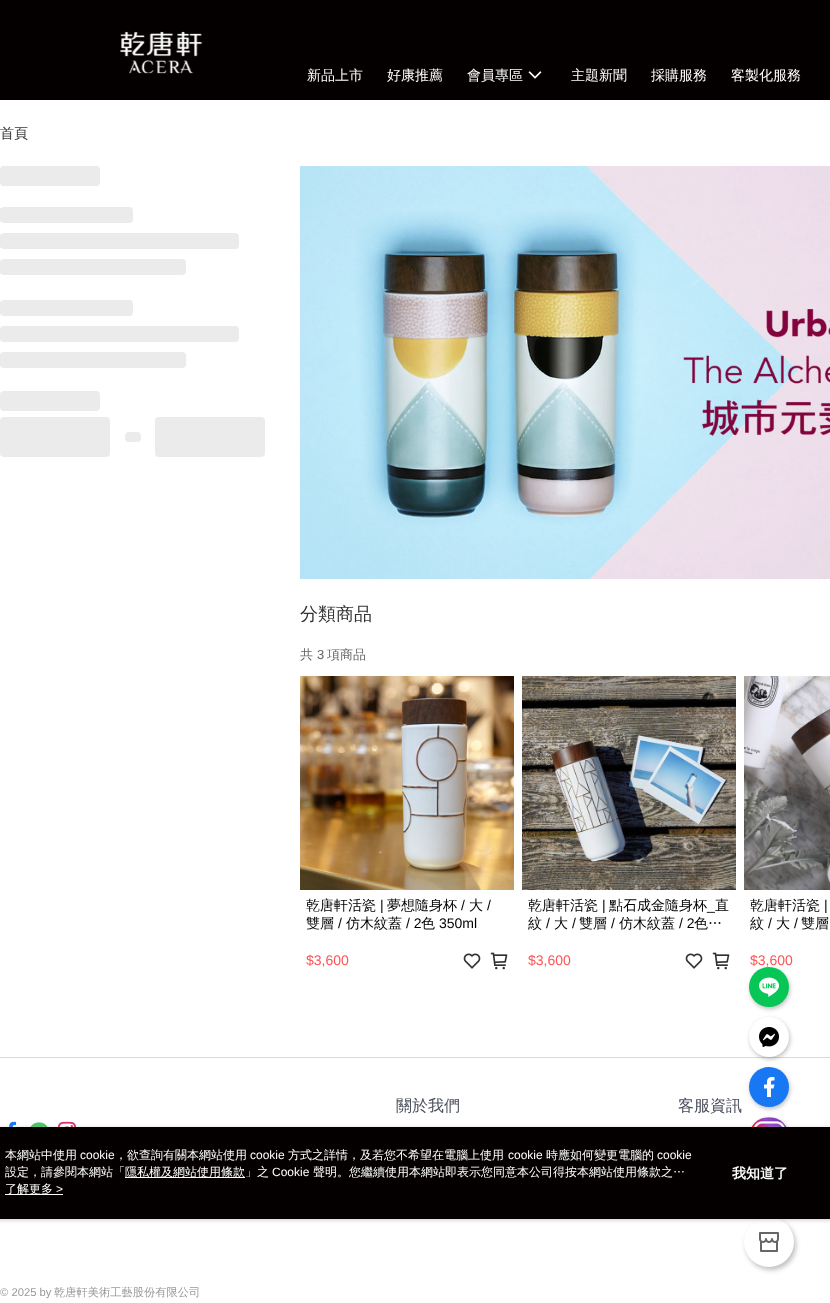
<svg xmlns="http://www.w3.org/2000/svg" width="830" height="1303">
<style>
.a{font:500 14px WenQuanYi Zen Hei;fill:#fff}
.b{font:500 14px WenQuanYi Zen Hei;fill:#333}
.c{font:500 18px WenQuanYi Zen Hei;fill:#333}
.d{font:500 13px WenQuanYi Zen Hei;fill:#666}
.e{font:13px Liberation Sans;fill:#666}
.f{font:500 14px WenQuanYi Zen Hei;fill:#000}
.g{font:14px Liberation Sans;fill:#000}
.h{font:14px Liberation Sans;fill:#ff5353}
.i{font:500 16px WenQuanYi Zen Hei;fill:#4a4e5c}
.j{font:11.25px Liberation Sans;fill:#999}
.k{font:500 11.25px WenQuanYi Zen Hei;fill:#999}
.l{font:500 12px WenQuanYi Zen Hei;fill:#fff}
.m{font:12px Liberation Sans;fill:#fff}
.n{font:bold 14px WenQuanYi Zen Hei;fill:#fff}
</style>
<defs>
<clipPath id="clip1"><rect y="207" width="133" height="16" rx="4"/></clipPath>
<linearGradient id="g1" gradientUnits="userSpaceOnUse" x1="-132" y1="215" x2="0.5" y2="215"><stop offset="0" stop-color="#ebebeb"/><stop offset="0.5" stop-color="#f5f5f5"/><stop offset="1" stop-color="#ebebeb"/></linearGradient>
<clipPath id="clip2"><rect y="233" width="239" height="16" rx="4"/></clipPath>
<linearGradient id="g2" gradientUnits="userSpaceOnUse" x1="-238" y1="241" x2="0.5" y2="241"><stop offset="0" stop-color="#ebebeb"/><stop offset="0.5" stop-color="#f5f5f5"/><stop offset="1" stop-color="#ebebeb"/></linearGradient>
<clipPath id="clip3"><rect y="259" width="186" height="16" rx="4"/></clipPath>
<linearGradient id="g3" gradientUnits="userSpaceOnUse" x1="-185" y1="267" x2="0.5" y2="267"><stop offset="0" stop-color="#ebebeb"/><stop offset="0.5" stop-color="#f5f5f5"/><stop offset="1" stop-color="#ebebeb"/></linearGradient>
<clipPath id="clip4"><rect y="300" width="133" height="16" rx="4"/></clipPath>
<linearGradient id="g4" gradientUnits="userSpaceOnUse" x1="-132" y1="308" x2="0.5" y2="308"><stop offset="0" stop-color="#ebebeb"/><stop offset="0.5" stop-color="#f5f5f5"/><stop offset="1" stop-color="#ebebeb"/></linearGradient>
<clipPath id="clip5"><rect y="326" width="239" height="16" rx="4"/></clipPath>
<linearGradient id="g5" gradientUnits="userSpaceOnUse" x1="-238" y1="334" x2="0.5" y2="334"><stop offset="0" stop-color="#ebebeb"/><stop offset="0.5" stop-color="#f5f5f5"/><stop offset="1" stop-color="#ebebeb"/></linearGradient>
<clipPath id="clip6"><rect y="352" width="186" height="16" rx="4"/></clipPath>
<linearGradient id="g6" gradientUnits="userSpaceOnUse" x1="-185" y1="360" x2="0.5" y2="360"><stop offset="0" stop-color="#ebebeb"/><stop offset="0.5" stop-color="#f5f5f5"/><stop offset="1" stop-color="#ebebeb"/></linearGradient>
</defs>
<rect width="100%" height="100%" fill="#fff"/>
<path fill="#050000" d="M0 0h830v100H0z"/>
<image href="1.png" x="120" y="31" width="83" height="43"/>
<image href="2.png" x="528" y="71" width="14" height="8"/>
<rect fill="#00000040" filter="blur(2px)" x="750" y="969" width="40" height="40" rx="20"/>
<circle fill="#06c755" cx="769" cy="987" r="20"/>
<image href="3.png" x="759" y="977" width="20" height="20"/>
<path fill="#dadada" d="M0 1057h830v1H0z"/>
<rect fill="#00000040" filter="blur(2px)" x="750" y="1019" width="40" height="40" rx="20"/>
<circle fill="#fff" cx="769" cy="1037" r="20"/>
<image href="4.png" x="759" y="1027" width="20" height="20"/>
<rect fill="#00000040" filter="blur(2px)" x="750" y="1069" width="40" height="40" rx="20"/>
<circle fill="#1877f2" cx="769" cy="1087" r="20"/>
<image href="5.png" x="764" y="1077" width="11" height="20"/>
<rect fill="#00000040" filter="blur(2px)" x="750" y="1119" width="40" height="40" rx="20"/>
<circle fill="#fff" cx="769" cy="1137" r="20"/>
<image href="6.png" x="751" y="1117" width="36" height="10"/>
<rect fill="#00000040" filter="blur(2.5px)" x="746" y="1220" width="50" height="50" rx="25"/>
<circle fill="#fff" cx="769" cy="1242" r="25"/>
<image href="7.png" x="759" y="1232" width="20" height="20"/>
<rect fill="#ebebeb" y="166" width="100" height="20" rx="4"/>
<rect fill="#ebebeb" y="207" width="133" height="16" rx="4"/>
<g clip-path="url(#clip1)">
<path fill="url(#g1)" d="M0 207h1v16H0z"/>
</g>
<rect fill="#ebebeb" y="233" width="239" height="16" rx="4"/>
<g clip-path="url(#clip2)">
<path fill="url(#g2)" d="M0 233h1v16H0z"/>
</g>
<rect fill="#ebebeb" y="259" width="186" height="16" rx="4"/>
<g clip-path="url(#clip3)">
<path fill="url(#g3)" d="M0 259h1v16H0z"/>
</g>
<rect fill="#ebebeb" y="300" width="133" height="16" rx="4"/>
<g clip-path="url(#clip4)">
<path fill="url(#g4)" d="M0 300h1v16H0z"/>
</g>
<rect fill="#ebebeb" y="326" width="239" height="16" rx="4"/>
<g clip-path="url(#clip5)">
<path fill="url(#g5)" d="M0 326h1v16H0z"/>
</g>
<rect fill="#ebebeb" y="352" width="186" height="16" rx="4"/>
<g clip-path="url(#clip6)">
<path fill="url(#g6)" d="M0 352h1v16H0z"/>
</g>
<rect fill="#ebebeb" y="391" width="100" height="20" rx="4"/>
<rect fill="#ebebeb" y="417" width="110" height="40" rx="4"/>
<rect fill="#ebebeb" x="125" y="432" width="16" height="10" rx="4"/>
<rect fill="#ebebeb" x="155" y="417" width="110" height="40" rx="4"/>
<image href="8.png" x="300" y="166" width="530" height="413"/>
<image href="9.png" x="300" y="676" width="214" height="214"/>
<image href="10.png" x="463" y="953" width="18" height="16"/>
<image href="11.png" x="490" y="952" width="18" height="18"/>
<image href="12.png" x="522" y="676" width="214" height="214"/>
<image href="10.png" x="685" y="953" width="18" height="16"/>
<image href="11.png" x="712" y="952" width="18" height="18"/>
<image href="13.png" x="744" y="676" width="86" height="214"/>
<image href="14.png" x="9" y="1121" width="8" height="6"/>
<image href="15.png" x="30" y="1122" width="18" height="5"/>
<image href="16.png" x="57" y="1121" width="20" height="6"/>
<rect fill="#97979780" filter="blur(2px)" x="-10" y="1128" width="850" height="92" rx="4"/>
<path fill="#050000" d="M0 1127h830v92H0z"/>
<path fill="#fff" d="M125 1177h120v1H125z"/>
<path fill="#fff" d="M5 1194h58v1H5z"/>
<text class="a" x="307" y="80">新品上市</text>
<text class="a" x="387" y="80">好康推薦</text>
<text class="a" x="467" y="80">會員專區</text>
<text class="a" x="571" y="80">主題新聞</text>
<text class="a" x="651" y="80">採購服務</text>
<text class="a" x="731" y="80">客製化服務</text>
<text class="b" x="0" y="138">首頁</text>
<text class="c" x="300" y="620">分類商品</text>
<text class="d" x="300" y="659">共</text>
<text class="e" x="317" y="659">3</text>
<text class="d" x="327" y="659">項商品</text>
<text class="f" x="306" y="910">乾唐軒活瓷</text>
<text class="g" x="380" y="910">|</text>
<text class="f" x="387" y="910">夢想隨身杯</text>
<text class="g" x="461" y="910">/</text>
<text class="f" x="469" y="910">大</text>
<text class="g" x="487" y="910">/</text>
<text class="f" x="306" y="928">雙層</text>
<text class="g" x="338" y="928">/</text>
<text class="f" x="346" y="928">仿木紋蓋</text>
<text class="g" x="406" y="928">/ 2</text>
<text class="f" x="421" y="928">色</text>
<text class="g" x="439" y="928">350ml</text>
<text class="h" x="306" y="965">$3,600</text>
<text class="f" x="528" y="910">乾唐軒活瓷</text>
<text class="g" x="602" y="910">|</text>
<text class="f" x="609" y="910">點石成金隨身杯</text>
<text class="g" x="707" y="910">_</text>
<text class="f" x="715" y="910">直</text>
<text class="f" x="528" y="928">紋</text>
<text class="g" x="546" y="928">/</text>
<text class="f" x="554" y="928">大</text>
<text class="g" x="572" y="928">/</text>
<text class="f" x="579" y="928">雙層</text>
<text class="g" x="611" y="928">/</text>
<text class="f" x="619" y="928">仿木紋蓋</text>
<text class="g" x="679" y="928">/ 2</text>
<text class="f" x="694" y="928">色…</text>
<text class="h" x="528" y="965">$3,600</text>
<text class="f" x="750" y="910">乾唐軒活瓷</text>
<text class="g" x="824" y="910">|</text>
<text class="f" x="750" y="928">紋</text>
<text class="g" x="768" y="928">/</text>
<text class="f" x="776" y="928">大</text>
<text class="g" x="794" y="928">/</text>
<text class="f" x="801" y="928">雙層</text>
<text class="h" x="750" y="965">$3,600</text>
<text class="i" x="396" y="1111">關於我們</text>
<text class="i" x="678" y="1111">客服資訊</text>
<text class="j" x="0" y="1296">© 2025 by</text>
<text class="k" x="54" y="1296">乾唐軒美術工藝股份有限公司</text>
<text class="l" x="5" y="1159">本網站中使用</text>
<text class="m" x="80" y="1159">cookie</text>
<text class="l" x="115" y="1159">，欲查詢有關本網站使用</text>
<text class="m" x="250" y="1159">cookie</text>
<text class="l" x="288" y="1159">方式之詳情，及若您不希望在電腦上使用</text>
<text class="m" x="508" y="1159">cookie</text>
<text class="l" x="546" y="1159">時應如何變更電腦的</text>
<text class="m" x="657" y="1159">cookie</text>
<text class="l" x="5" y="1176">設定，請參閱本網站「</text>
<text class="l" x="125" y="1176">隱私權及網站使用條款」之</text>
<text class="m" x="272" y="1176">Cookie</text>
<text class="l" x="313" y="1176">聲明。您繼續使用本網站即表示您同意本公司得按本網站使用條款之…</text>
<text class="l" x="5" y="1193">了解更多</text>
<text class="m" x="56" y="1193">&gt;</text>
<text class="n" x="732" y="1178">我知道了</text>
</svg>
